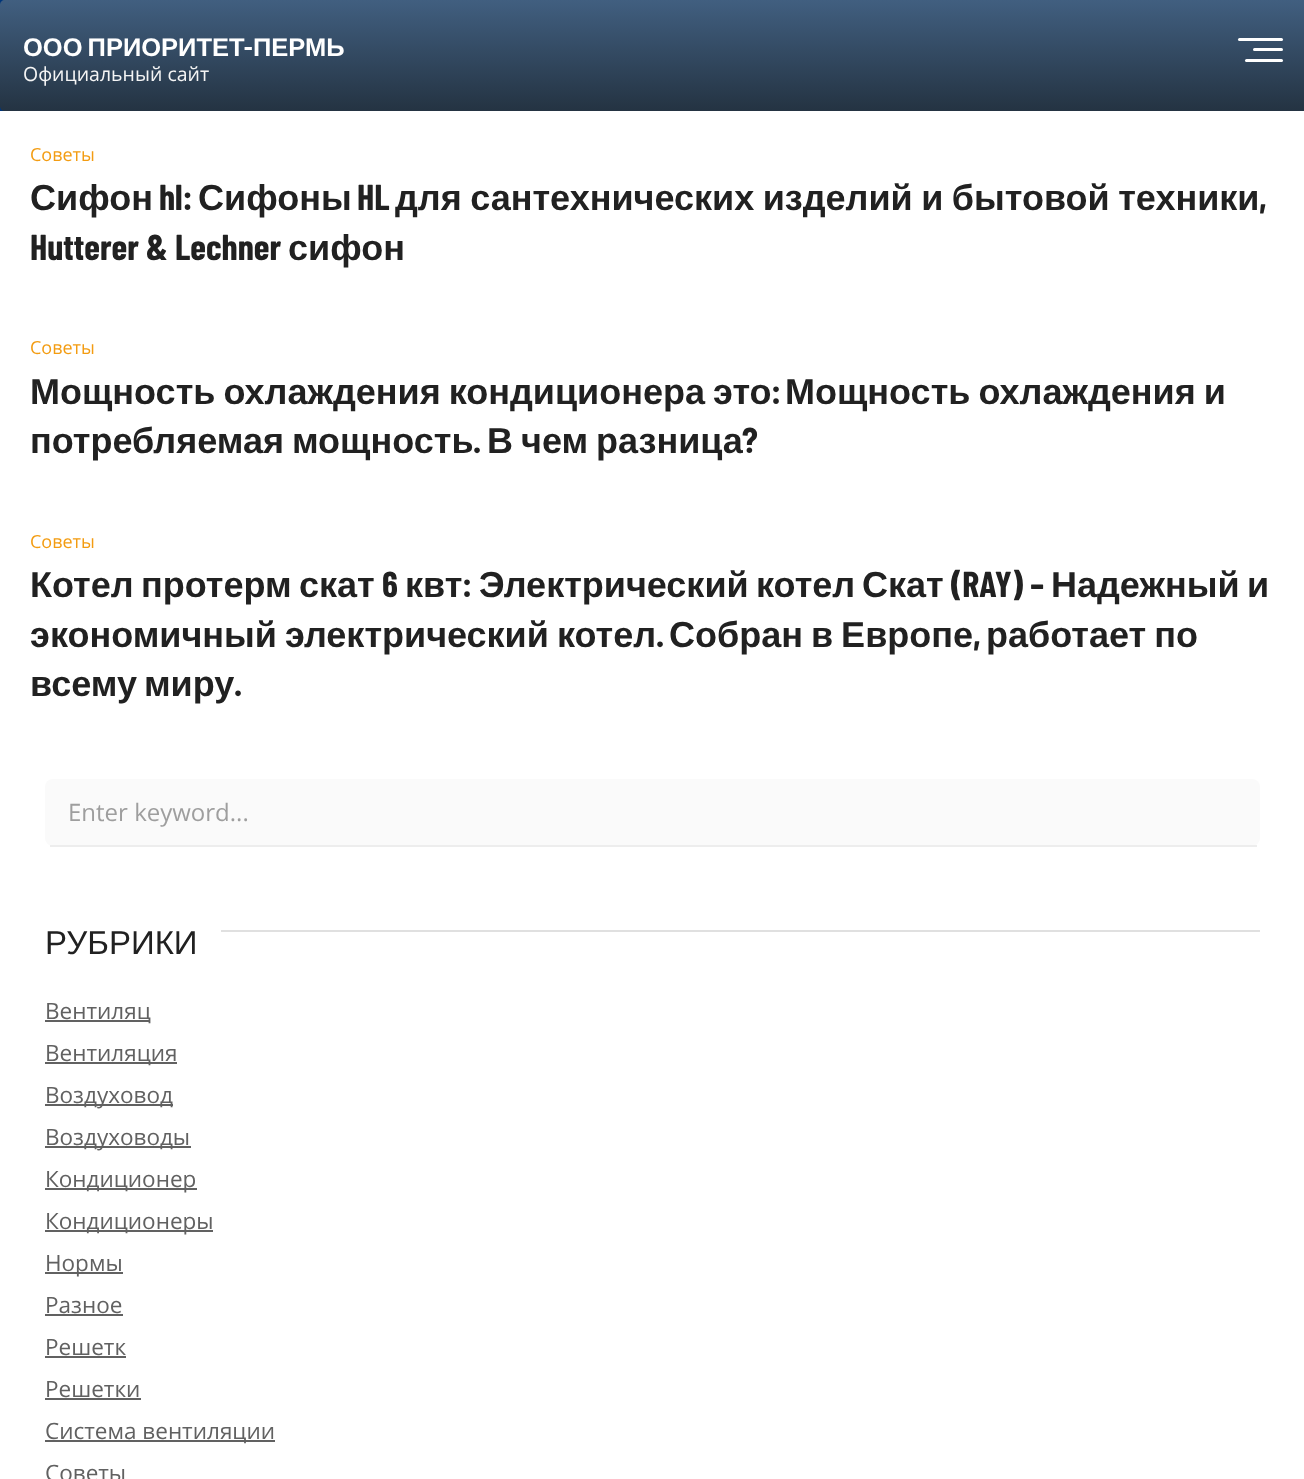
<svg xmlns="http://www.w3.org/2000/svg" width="1304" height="1479">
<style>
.a{font:bold 25.5px Liberation Sans;fill:#fff}
.b{font:bold 25.5px Barlow Condensed;fill:#fff}
.c{font:19.5px Open Sans;fill:#f5f5f5}
.d{font:18px Open Sans;fill:#f39c12}
.e{font:bold 36px Liberation Sans;fill:#212121}
.f{font:bold 36px Barlow Condensed;fill:#212121}
.g{font:24px Open Sans;fill:#9e9e9e}
.h{font:33px Liberation Sans;fill:#212121}
.i{font:22.5px Open Sans;fill:#616161}
</style>
<defs>
<linearGradient id="g1" gradientUnits="userSpaceOnUse" x1="653" y1="0" x2="653" y2="111"><stop offset="0" stop-color="#415f80"/><stop offset="1" stop-color="#243342"/></linearGradient>
</defs>
<rect width="100%" height="100%" fill="#fff"/>
<image href="1.png" x="0" y="0" width="5" height="111"/>
<path fill="url(#g1)" d="M5 0h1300v111h-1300c-3 0-5-2-5-5v-101c0-3 2-5 5-5z"/>
<rect fill="#fff" x="1238" y="38" width="45" height="3" rx="1.5"/>
<rect fill="#fff" x="1253" y="48" width="30" height="3" rx="1.5"/>
<rect fill="#fff" x="1245" y="59" width="38" height="3" rx="1.5"/>
<rect fill="#fafafa" x="45" y="779" width="1215" height="67" rx="8"/>
<path fill="#ededed" d="M50 845h1207v2H50z"/>
<path fill="#e0e0e0" d="M221 930h1039v2H221z"/>
<path fill="#616161" d="M45 1020h105v2H45z"/>
<path fill="#616161" d="M45 1062h132v2H45z"/>
<path fill="#616161" d="M45 1104h128v2H45z"/>
<path fill="#616161" d="M45 1146h146v2H45z"/>
<path fill="#616161" d="M45 1188h152v2H45z"/>
<path fill="#616161" d="M45 1230h168v2H45z"/>
<path fill="#616161" d="M45 1272h78v2H45z"/>
<path fill="#616161" d="M45 1314h78v2H45z"/>
<path fill="#616161" d="M45 1356h81v2H45z"/>
<path fill="#616161" d="M45 1398h96v2H45z"/>
<path fill="#616161" d="M45 1440h230v2H45z"/>
<text class="a" x="23" y="56" word-spacing="-2">ООО ПРИОРИТЕТ</text>
<text class="b" x="244" y="56">-</text>
<text class="a" x="253" y="56">ПЕРМЬ</text>
<text class="c" x="23" y="81">Официальный сайт</text>
<text class="d" x="30" y="161">Советы</text>
<text class="e" x="30" y="210">Сифон</text>
<text class="f" x="159" y="210">hl:</text>
<text class="e" x="198" y="210">Сифоны</text>
<text class="f" x="357" y="210">HL</text>
<text class="e" x="395" y="210" word-spacing="-1.5">для сантехнических изделий и бытовой техники</text>
<text class="f" x="1259" y="210">,</text>
<text class="f" x="30" y="260">Hutterer &amp; Lechner</text>
<text class="e" x="288" y="260">сифон</text>
<text class="d" x="30" y="354">Советы</text>
<text class="e" x="30" y="404" word-spacing="-2">Мощность охлаждения кондиционера это</text>
<text class="f" x="771" y="404">:</text>
<text class="e" x="785" y="404" word-spacing="-2">Мощность охлаждения и</text>
<text class="e" x="30" y="453" word-spacing="-2">потребляемая мощность</text>
<text class="f" x="473" y="453">.</text>
<text class="e" x="487" y="453" word-spacing="-2">В чем разница</text>
<text class="f" x="742" y="453">?</text>
<text class="d" x="30" y="548">Советы</text>
<text class="e" x="30" y="597">Котел</text>
<text class="e" x="141" y="597">протерм</text>
<text class="e" x="299" y="597">скат</text>
<text class="f" x="382" y="597">6</text>
<text class="e" x="405" y="597">квт</text>
<text class="f" x="462" y="597">:</text>
<text class="e" x="479" y="597">Электрический</text>
<text class="e" x="756" y="597">котел</text>
<text class="e" x="862" y="597">Скат</text>
<text class="f" x="951" y="597">(RAY) –</text>
<text class="e" x="1051" y="597">Надежный</text>
<text class="e" x="1247" y="597">и</text>
<text class="e" x="30" y="647" word-spacing="-2">экономичный электрический котел</text>
<text class="f" x="656" y="647">.</text>
<text class="e" x="669" y="647" word-spacing="-2">Собран в Европе</text>
<text class="f" x="973" y="647">,</text>
<text class="e" x="986" y="647" word-spacing="-2">работает по</text>
<text class="e" x="30" y="696" word-spacing="-3">всему миру</text>
<text class="f" x="234" y="696">.</text>
<text class="g" x="68" y="821">Enter keyword...</text>
<text class="h" x="45" y="954">РУБРИКИ</text>
<text class="i" x="45" y="1019">Вентиляц</text>
<text class="i" x="45" y="1061">Вентиляция</text>
<text class="i" x="45" y="1103">Воздуховод</text>
<text class="i" x="45" y="1145">Воздуховоды</text>
<text class="i" x="45" y="1187">Кондиционер</text>
<text class="i" x="45" y="1229">Кондиционеры</text>
<text class="i" x="45" y="1271">Нормы</text>
<text class="i" x="45" y="1313">Разное</text>
<text class="i" x="45" y="1355">Решетк</text>
<text class="i" x="45" y="1397">Решетки</text>
<text class="i" x="45" y="1439">Система вентиляции</text>
<text class="i" x="45" y="1481">Советы</text>
</svg>
